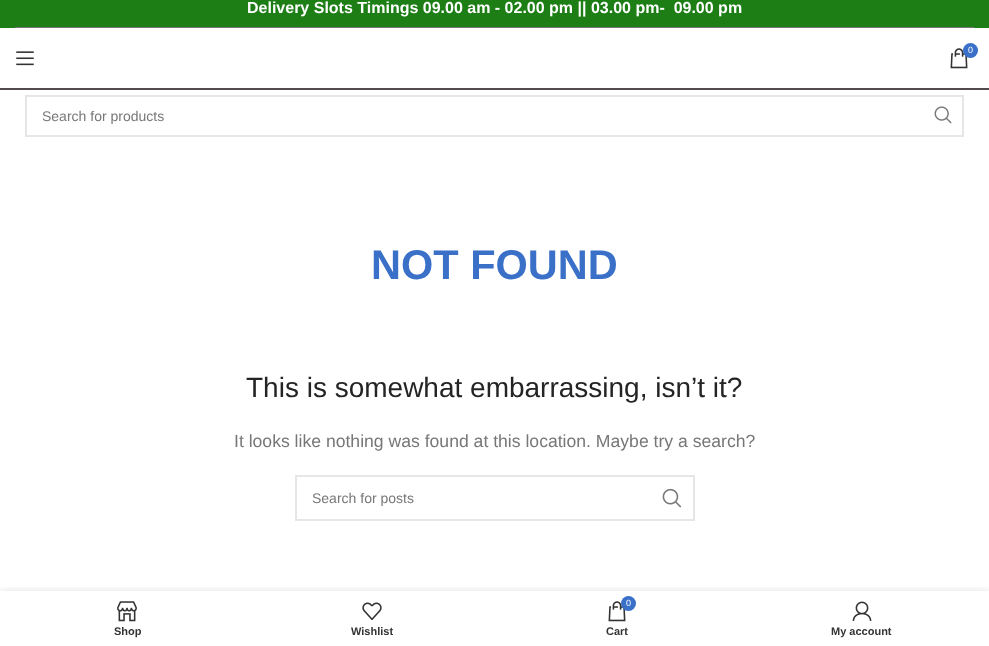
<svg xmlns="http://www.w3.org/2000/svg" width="989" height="646">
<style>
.a{font:bold 16px Liberation Sans;fill:#fff}
.b{font:9px Liberation Sans;fill:#fff}
.c{font:14px Liberation Sans;fill:#777}
.d{font:bold 41.5px Liberation Sans;fill:#3a70c7}
.e{font:28px Liberation Sans;fill:#242424}
.f{font:17.6px Liberation Sans;fill:#777}
.g{font:bold 11px Liberation Sans;fill:#333}
</style>
<defs>
<clipPath id="clip1"><path d="M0 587h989v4H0z"/></clipPath>
</defs>
<rect width="100%" height="100%" fill="#fff"/>
<path fill="#1c7e15" d="M0 0h989v28H0z"/>
<path fill="#777" d="M15 27h959v1H15z"/>
<path fill="#524b4b" d="M0 88h989v2H0z"/>
<image href="1.png" x="950" y="48" width="18" height="21"/>
<circle fill="#3a70c7" cx="970.5" cy="50.5" r="7.5"/>
<image href="2.png" x="16" y="51" width="18" height="15"/>
<path fill="none" stroke="#e6e6e6" stroke-width="2" d="M26 96h937v40H26z"/>
<image href="3.png" x="934" y="106" width="18" height="18"/>
<path fill="none" stroke="#e6e6e6" stroke-width="2" d="M296 476h398v44H296z"/>
<image href="4.png" x="662" y="488" width="20" height="20"/>
<g clip-path="url(#clip1)">
<path fill="#0000001f" filter="blur(4.5px)" d="M0 591h989v55H0z"/>
</g>
<image href="5.png" x="117" y="601" width="20" height="21"/>
<image href="6.png" x="362" y="602" width="20" height="18"/>
<image href="1.png" x="608" y="601" width="18" height="21"/>
<circle fill="#3a70c7" cx="628.5" cy="603.5" r="7.5"/>
<image href="7.png" x="852" y="601" width="20" height="20"/>
<text class="a" xml:space="preserve" x="247" y="13">Delivery Slots Timings 09.00 am - 02.00 pm || 03.00 pm-  09.00 pm</text>
<text class="b" x="968" y="53">0</text>
<text class="c" x="42" y="121">Search for products</text>
<text class="d" x="371" y="279">NOT FOUND</text>
<text class="e" x="246" y="397">This is somewhat embarrassing, isn’t it?</text>
<text class="f" x="234" y="447">It looks like nothing was found at this location. Maybe try a search?</text>
<text class="c" x="312" y="503">Search for posts</text>
<text class="g" x="114" y="635">Shop</text>
<text class="g" x="351" y="635">Wishlist</text>
<text class="b" x="626" y="606">0</text>
<text class="g" x="606" y="635">Cart</text>
<text class="g" x="831" y="635">My account</text>
</svg>
